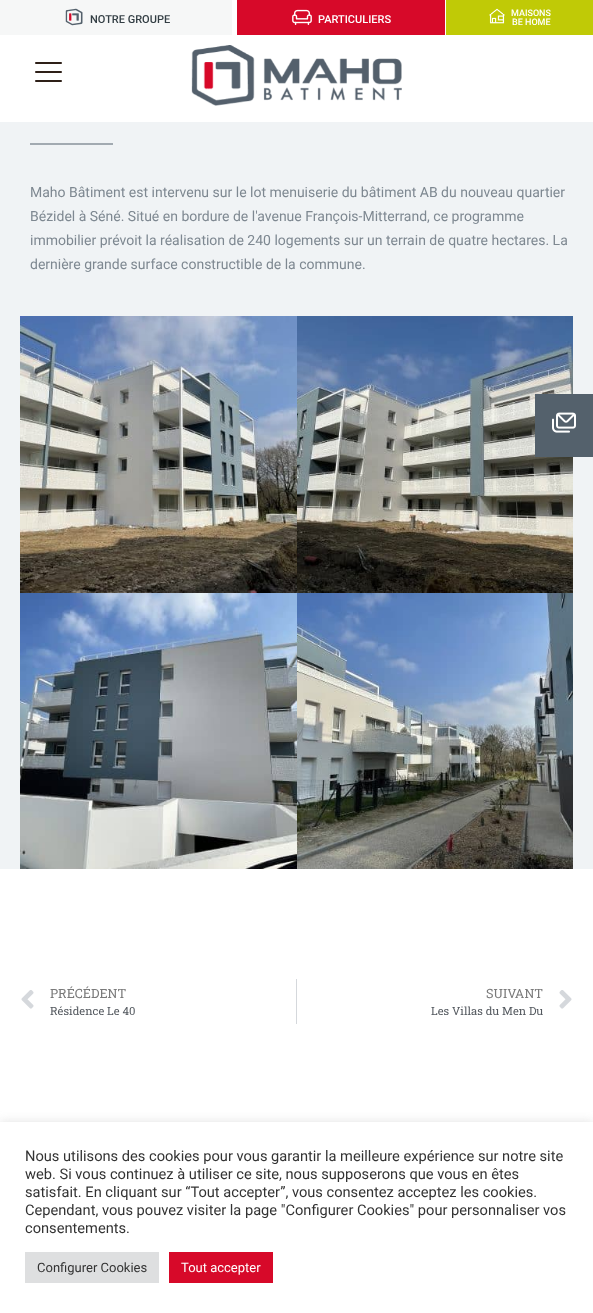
<svg xmlns="http://www.w3.org/2000/svg" width="593" height="1313">
<style>
.a{font:500 11px Roboto;fill:#333e44}
.b{font:500 11px Roboto;fill:#fff}
.c{font:500 9px Roboto;fill:#fff}
.d{font:14px Roboto;fill:#7e8891}
.e{font:12.75px Roboto Slab;fill:#7a7a7a}
.f{font:11.25px Roboto Slab;fill:#54595f}
.g{font:14.65px Roboto;fill:#333}
.h{font:13px Roboto;fill:#333}
.i{font:13px Roboto;fill:#fff}
</style>
<rect width="100%" height="100%" fill="#fff"/>
<path fill="#f6f7f7" d="M0 0h232v35H0z"/>
<image href="1.png" x="65" y="8" width="18" height="18"/>
<path fill="#d70929" d="M237 0h208v35H237z"/>
<image href="2.png" x="292" y="9" width="20" height="16"/>
<path fill="#c0ca06" d="M446 0h147v35H446z"/>
<image href="3.png" x="489" y="8" width="16" height="16"/>
<image href="4.png" x="35" y="62" width="27" height="20"/>
<image href="5.png" x="191" y="45" width="211" height="61"/>
<path fill="#f0f3f5" d="M0 122h593v747H0z"/>
<image href="8.png" x="297" y="316" width="276" height="277"/>
<path fill="#54616c" d="M535 394h58v63H535z"/>
<image href="6.png" x="552" y="412" width="24" height="21"/>
<path fill="#a2aab1" d="M30 143h83v2H30z"/>
<image href="7.png" x="20" y="316" width="277" height="277"/>
<image href="9.png" x="20" y="593" width="277" height="276"/>
<image href="10.png" x="297" y="593" width="276" height="276"/>
<image href="11.png" x="21" y="990" width="13" height="19"/>
<path fill="#d5d8dc" d="M296 979h1v45H296z"/>
<image href="12.png" x="559" y="990" width="13" height="19"/>
<path fill="#acabab4d" filter="blur(5px)" d="M0 1121h593v191H0z"/>
<path fill="#fff" d="M0 1122h593v191H0z"/>
<path fill="#dedfe0" d="M25 1252h134v31H25z"/>
<path fill="#d70929" d="M169 1252h104v31H169z"/>
<text class="a" x="90" y="23">NOTRE GROUPE</text>
<text class="b" x="318" y="23">PARTICULIERS</text>
<text class="c" x="511" y="16">MAISONS</text>
<text class="c" x="512" y="25">BE HOME</text>
<text class="d" x="30" y="197">Maho Bâtiment est intervenu sur le lot menuiserie du bâtiment AB du nouveau quartier</text>
<text class="d" x="30" y="221">Bézidel à Séné. Situé en bordure de l'avenue François-Mitterrand, ce programme</text>
<text class="d" x="30" y="245">immobilier prévoit la réalisation de 240 logements sur un terrain de quatre hectares. La</text>
<text class="d" x="30" y="269">dernière grande surface constructible de la commune.</text>
<text class="e" x="50" y="998">PRÉCÉDENT</text>
<text class="f" x="50" y="1015">Résidence Le 40</text>
<text class="e" x="486" y="998">SUIVANT</text>
<text class="f" x="431" y="1015">Les Villas du Men Du</text>
<text class="g" x="25" y="1161">Nous utilisons des cookies pour vous garantir la meilleure expérience sur notre site</text>
<text class="g" x="25" y="1179">web. Si vous continuez à utiliser ce site, nous supposerons que vous en êtes</text>
<text class="g" x="25" y="1197">satisfait. En cliquant sur “Tout accepter”, vous consentez acceptez les cookies.</text>
<text class="g" x="25" y="1215">Cependant, vous pouvez visiter la page "Configurer Cookies" pour personnaliser vos</text>
<text class="g" x="25" y="1233">consentements.</text>
<text class="h" x="37" y="1272">Configurer Cookies</text>
<text class="i" x="181" y="1272">Tout accepter</text>
</svg>
